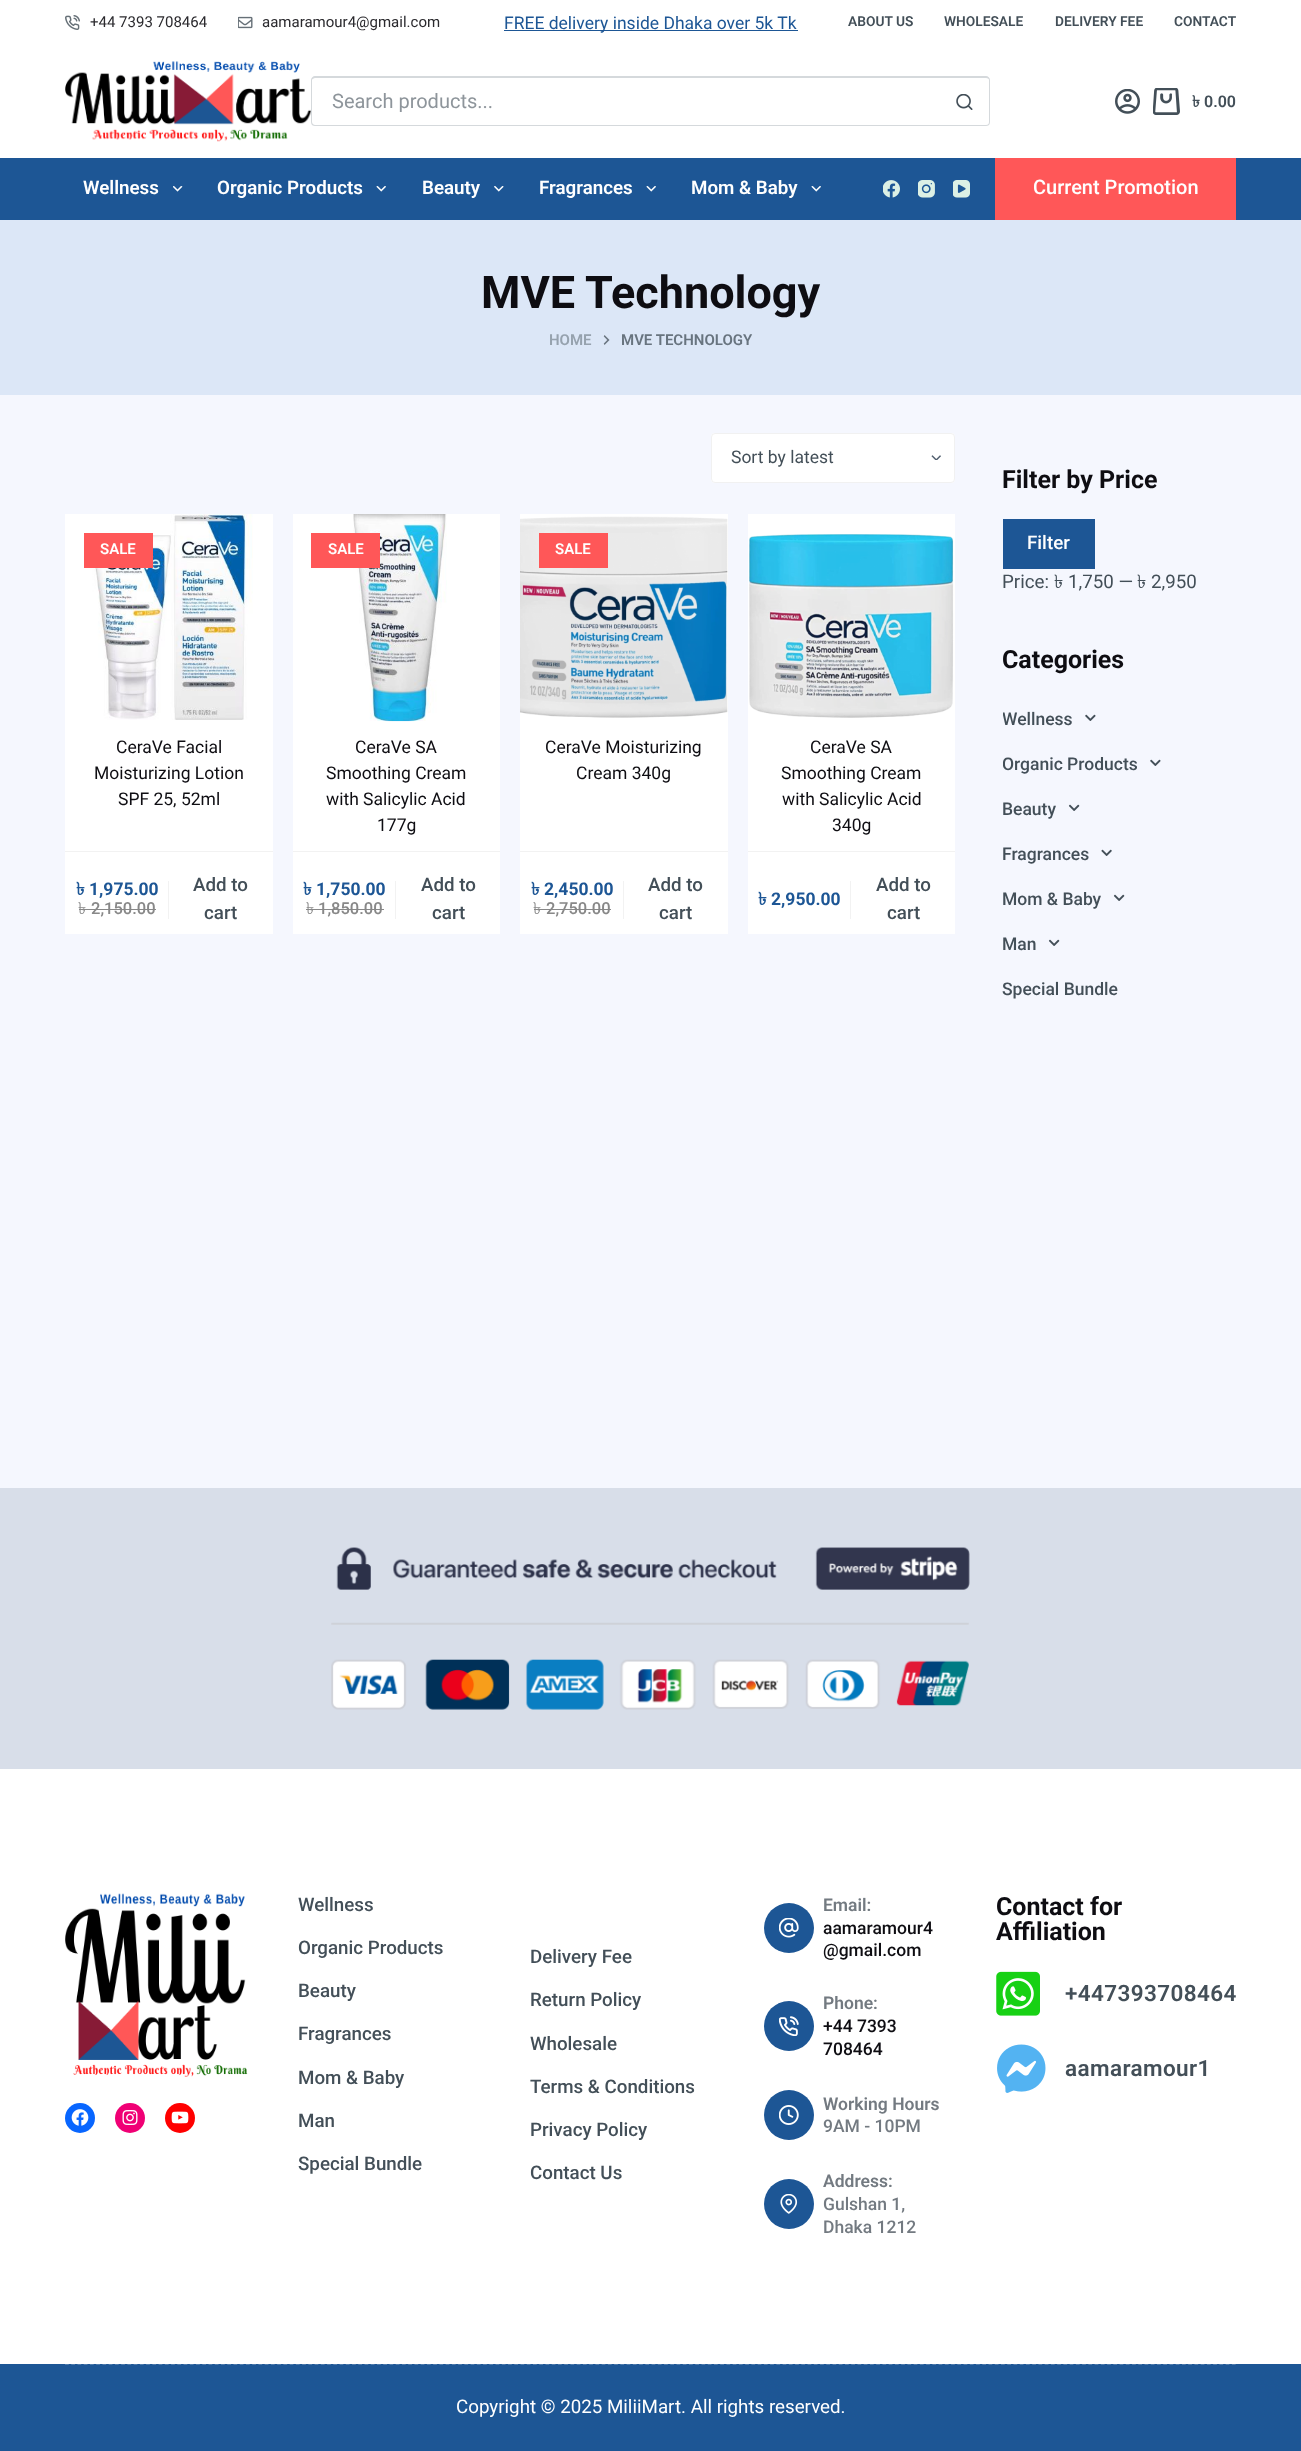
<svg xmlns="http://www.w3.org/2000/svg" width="1301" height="2451">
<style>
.a{font:15px Roboto;fill:#2b2a2e}
.b{font:17.5px Roboto;fill:#1d5695}
.c{font:600 13.75px Roboto;fill:#434f58}
.d{font:20px Roboto;fill:#8e959b}
.e{font:bold 16px Lohit Bengali;fill:#434f58}
.f{font:600 16px Roboto;fill:#434f58}
.g{font:600 18.75px Roboto;fill:#fff}
.h{font:500 20px Roboto;fill:#fff}
.i{font:bold 45px Roboto;fill:#0e0d12}
.j{font:600 15px Roboto;fill:#96a2ae}
.k{font:600 15px Roboto;fill:#68747f}
.l{font:17.5px Roboto;fill:#434f58}
.m{font:600 15px Roboto;fill:#fff}
.n{font:17.5px Roboto;fill:#0e0d12}
.o{font:bold 17.5px Lohit Bengali;fill:#1d5695}
.p{font:bold 17.5px Roboto;fill:#1d5695}
.q{font:16.5px Lohit Bengali;fill:#888}
.r{font:500 16.5px Roboto;fill:#888}
.s{font:500 18.75px Roboto;fill:#434f58}
.t{font:bold 25px Roboto;fill:#0e0d12}
.u{font:500 18.75px Roboto;fill:#fff}
.v{font:18.75px Roboto;fill:#434f58}
.w{font:18.75px Lohit Bengali;fill:#434f58}
.x{font:500 17.5px Roboto;fill:#434f58}
.y{font:600 17.5px Roboto;fill:#737a81}
.z{font:500 17.5px Roboto;fill:#0e0d12}
.a1{font:500 17.5px Roboto;fill:#737a81}
.b1{font:600 22.5px Roboto;letter-spacing:0.4px;fill:#434f58}
.c1{font:18.75px Roboto;fill:#fff}
</style>
<defs>
<clipPath id="clip1"><path d="M1003 696h233v315H1003z"/></clipPath>
</defs>
<rect width="100%" height="100%" fill="#f5f7fe"/>
<path fill="#fff" d="M0 0h1301v158H0z"/>
<image href="1.png" x="65" y="15" width="15" height="15"/>
<image href="2.png" x="238" y="16" width="15" height="13"/>
<path fill="#1d5695" d="M504 30h294v1H504z"/>
<image href="3.png" x="65" y="61" width="247" height="81"/>
<path fill="#fff" d="M315 76h625v50h-625c-2 0-4-2-4-4v-42c0-2 2-4 4-4z"/>
<path fill="#d5d9dc" fill-rule="evenodd" d="M315 76h625v50h-625c-2 0-4-1-4-4v-42c0-2 2-4 4-4zm0 2h625v47h-625c-1 0-3-1-3-3v-42c0-1 2-2 3-2z"/>
<path fill="#d5d9dc" fill-rule="evenodd" d="M940 76h46c2 0 4 2 4 4v42c0 3-2 4-4 4h-46zm0 2h46c2 0 3 1 3 2v42c0 2-1 3-3 3h-46z"/>
<image href="4.png" x="956" y="94" width="17" height="16"/>
<image href="5.png" x="1115" y="89" width="25" height="25"/>
<image href="6.png" x="1153" y="88" width="27" height="27"/>
<path fill="#1d5695" d="M0 158h1301v62H0z"/>
<image href="7.png" x="173" y="186" width="10" height="6"/>
<image href="8.png" x="376" y="186" width="10" height="6"/>
<image href="9.png" x="494" y="186" width="10" height="6"/>
<image href="8.png" x="646" y="186" width="10" height="6"/>
<image href="8.png" x="811" y="186" width="10" height="6"/>
<image href="10.png" x="883" y="180" width="17" height="18"/>
<image href="11.png" x="918" y="180" width="17" height="18"/>
<image href="12.png" x="953" y="180" width="17" height="18"/>
<path fill="#ff5758" d="M995 158h241v62H995z"/>
<path fill="#dce7f7" d="M0 220h1301v175H0z"/>
<image href="13.png" x="603" y="335" width="7" height="10"/>
<rect fill="#fff" x="711" y="433" width="244" height="50" rx="4"/>
<image href="14.png" x="931" y="455" width="10" height="5"/>
<rect fill="none" stroke="#f1f1f1" x="711.5" y="433.5" width="243" height="49" rx="3.5"/>
<path fill="#fff" d="M65 514h208v420H65z"/>
<image href="15.png" x="91" y="514" width="162" height="206"/>
<path fill="#ff5758" d="M84 533h69v35H84z"/>
<path fill="#f2f2f2" d="M65 851h208v1H65z"/>
<path fill="#888" d="M79 909h12v1H79z"/>
<path fill="#888" d="M91 909h65v1H91z"/>
<path fill="#f2f2f2" d="M168 881h1v38H168z"/>
<path fill="#fff" d="M293 514h207v420H293z"/>
<image href="16.png" x="353" y="514" width="94" height="208"/>
<path fill="#ff5758" d="M311 533h69v35H311z"/>
<path fill="#f2f2f2" d="M293 851h207v1H293z"/>
<path fill="#888" d="M306 909h13v1H306z"/>
<path fill="#888" d="M319 909h65v1H319z"/>
<path fill="#f2f2f2" d="M395 881h1v38H395z"/>
<path fill="#fff" d="M520 514h208v420H520z"/>
<image href="17.png" x="520" y="516" width="208" height="202"/>
<path fill="#ff5758" d="M539 533h69v35H539z"/>
<path fill="#f2f2f2" d="M520 851h208v1H520z"/>
<path fill="#888" d="M534 909h12v1H534z"/>
<path fill="#888" d="M546 909h65v1H546z"/>
<path fill="#f2f2f2" d="M623 881h1v38H623z"/>
<path fill="#fff" d="M748 514h207v420H748z"/>
<image href="18.png" x="749" y="534" width="205" height="184"/>
<path fill="#f2f2f2" d="M748 851h207v1H748z"/>
<path fill="#f2f2f2" d="M850 881h1v38H850z"/>
<path fill="#1d5695" d="M1003 519h92v50H1003z"/>
<image href="19.png" x="1085" y="714" width="11" height="7"/>
<image href="19.png" x="1150" y="759" width="11" height="7"/>
<image href="20.png" x="1068" y="804" width="12" height="7"/>
<image href="21.png" x="1101" y="849" width="11" height="7"/>
<image href="20.png" x="1113" y="894" width="12" height="7"/>
<image href="20.png" x="1048" y="939" width="12" height="7"/>
<path fill="#d8dee9" d="M0 1488h1301v281H0z"/>
<image href="22.png" x="331" y="1547" width="639" height="163"/>
<path fill="#fff" d="M0 1769h1301v595H0z"/>
<image href="23.png" x="65" y="1893" width="183" height="184"/>
<circle fill="#0866ff" cx="80" cy="2118" r="15"/>
<image href="24.png" x="71" y="2109" width="18" height="17"/>
<circle fill="#f00075" cx="130" cy="2118" r="15"/>
<image href="25.png" x="122" y="2110" width="16" height="15"/>
<circle fill="#f00" cx="180" cy="2118" r="15"/>
<image href="26.png" x="171" y="2111" width="18" height="13"/>
<circle fill="#1d5695" cx="789" cy="1928" r="25"/>
<image href="27.png" x="779" y="1918" width="20" height="20"/>
<circle fill="#1d5695" cx="789" cy="2026" r="25"/>
<image href="28.png" x="779" y="2016" width="20" height="20"/>
<circle fill="#1d5695" cx="789" cy="2115" r="25"/>
<image href="29.png" x="779" y="2105" width="20" height="20"/>
<circle fill="#1d5695" cx="789" cy="2204" r="25"/>
<image href="30.png" x="780" y="2194" width="18" height="20"/>
<image href="31.png" x="996" y="1971" width="44" height="45"/>
<image href="32.png" x="997" y="2044" width="49" height="49"/>
<path fill="#1d5695" d="M0 2364h1301v87H0z"/>
<path fill="none" stroke="#517dad" stroke-width="1.2" stroke-dasharray="3.75 2.49" d="M65 2364.5h1171"/>
<text class="a" x="90" y="27">+44 7393 708464</text>
<text class="a" x="262" y="27">aamaramour4@gmail.com</text>
<text class="b" x="504" y="29">FREE delivery inside Dhaka over 5k Tk</text>
<text class="c" x="848" y="26">ABOUT US</text>
<text class="c" x="944" y="26">WHOLESALE</text>
<text class="c" x="1055" y="26">DELIVERY FEE</text>
<text class="c" x="1174" y="26">CONTACT</text>
<text class="d" x="332" y="108">Search products...</text>
<text class="e" x="1192" y="107">৳</text>
<text class="f" x="1204" y="107">0.00</text>
<text class="g" x="83" y="194">Wellness</text>
<text class="g" x="217" y="194">Organic Products</text>
<text class="g" x="422" y="194">Beauty</text>
<text class="g" x="539" y="194">Fragrances</text>
<text class="g" x="691" y="194">Mom &amp; Baby</text>
<text class="h" x="1033" y="194">Current Promotion</text>
<text class="i" x="481" y="308">MVE Technology</text>
<text class="j" x="549" y="345">HOME</text>
<text class="k" x="621" y="345">MVE TECHNOLOGY</text>
<text class="l" x="731" y="463">Sort by latest</text>
<text class="m" x="100" y="554">SALE</text>
<text class="n" x="116" y="753">CeraVe Facial</text>
<text class="n" x="94" y="779">Moisturizing Lotion</text>
<text class="n" x="118" y="805">SPF 25, 52ml</text>
<text class="o" x="76" y="895">৳</text>
<text class="p" x="89" y="895">1,975.00</text>
<text class="q" x="78" y="914">৳</text>
<text class="r" x="91" y="914">2,150.00</text>
<text class="s" x="193" y="891">Add to</text>
<text class="s" x="204" y="919">cart</text>
<text class="m" x="328" y="554">SALE</text>
<text class="n" x="355" y="753">CeraVe SA</text>
<text class="n" x="326" y="779">Smoothing Cream</text>
<text class="n" x="326" y="805">with Salicylic Acid</text>
<text class="n" x="377" y="831">177g</text>
<text class="o" x="303" y="895">৳</text>
<text class="p" x="316" y="895">1,750.00</text>
<text class="q" x="306" y="914">৳</text>
<text class="r" x="318" y="914">1,850.00</text>
<text class="s" x="421" y="891">Add to</text>
<text class="s" x="432" y="919">cart</text>
<text class="m" x="555" y="554">SALE</text>
<text class="n" x="545" y="753">CeraVe Moisturizing</text>
<text class="n" x="576" y="779">Cream 340g</text>
<text class="o" x="531" y="895">৳</text>
<text class="p" x="544" y="895">2,450.00</text>
<text class="q" x="533" y="914">৳</text>
<text class="r" x="546" y="914">2,750.00</text>
<text class="s" x="648" y="891">Add to</text>
<text class="s" x="659" y="919">cart</text>
<text class="n" x="810" y="753">CeraVe SA</text>
<text class="n" x="781" y="779">Smoothing Cream</text>
<text class="n" x="782" y="805">with Salicylic Acid</text>
<text class="n" x="832" y="831">340g</text>
<text class="o" x="758" y="905">৳</text>
<text class="p" x="771" y="905">2,950.00</text>
<text class="s" x="876" y="891">Add to</text>
<text class="s" x="887" y="919">cart</text>
<text class="t" x="1002" y="488">Filter by Price</text>
<text class="u" x="1027" y="549">Filter</text>
<text class="v" x="1002" y="588">Price:</text>
<text class="w" x="1054" y="588">৳</text>
<text class="v" x="1068" y="588">1,750 —</text>
<text class="w" x="1137" y="588">৳</text>
<text class="v" x="1151" y="588">2,950</text>
<text class="t" x="1002" y="668">Categories</text>
<g clip-path="url(#clip1)">
<text class="x" x="1002" y="725">Wellness</text>
<text class="x" x="1002" y="770">Organic Products</text>
</g>
<text class="x" x="1002" y="815">Beauty</text>
<text class="x" x="1002" y="860">Fragrances</text>
<text class="x" x="1002" y="905">Mom &amp; Baby</text>
<text class="x" x="1002" y="950">Man</text>
<text class="x" x="1002" y="995">Special Bundle</text>
<text class="s" x="298" y="1911">Wellness</text>
<text class="s" x="298" y="1954">Organic Products</text>
<text class="s" x="298" y="1997">Beauty</text>
<text class="s" x="298" y="2040">Fragrances</text>
<text class="s" x="298" y="2084">Mom &amp; Baby</text>
<text class="s" x="298" y="2127">Man</text>
<text class="s" x="298" y="2170">Special Bundle</text>
<text class="s" x="530" y="1963">Delivery Fee</text>
<text class="s" x="530" y="2006">Return Policy</text>
<text class="s" x="530" y="2050">Wholesale</text>
<text class="s" x="530" y="2093">Terms &amp; Conditions</text>
<text class="s" x="530" y="2136">Privacy Policy</text>
<text class="s" x="530" y="2179">Contact Us</text>
<text class="y" x="823" y="1911">Email:</text>
<text class="z" x="823" y="1934">aamaramour4</text>
<text class="z" x="823" y="1956">@gmail.com</text>
<text class="y" x="823" y="2009">Phone:</text>
<text class="z" x="823" y="2032">+44 7393</text>
<text class="z" x="823" y="2055">708464</text>
<text class="y" x="823" y="2110">Working Hours</text>
<text class="a1" x="823" y="2132">9AM - 10PM</text>
<text class="y" x="823" y="2187">Address:</text>
<text class="a1" x="823" y="2210">Gulshan 1,</text>
<text class="a1" x="823" y="2233">Dhaka 1212</text>
<text class="t" x="996" y="1915">Contact for</text>
<text class="t" x="996" y="1940">Affiliation</text>
<text class="b1" x="1065" y="2001">+447393708464</text>
<text class="b1" x="1065" y="2076">aamaramour1</text>
<text class="c1" x="456" y="2413">Copyright © 2025 MiliiMart. All rights reserved.</text>
</svg>
